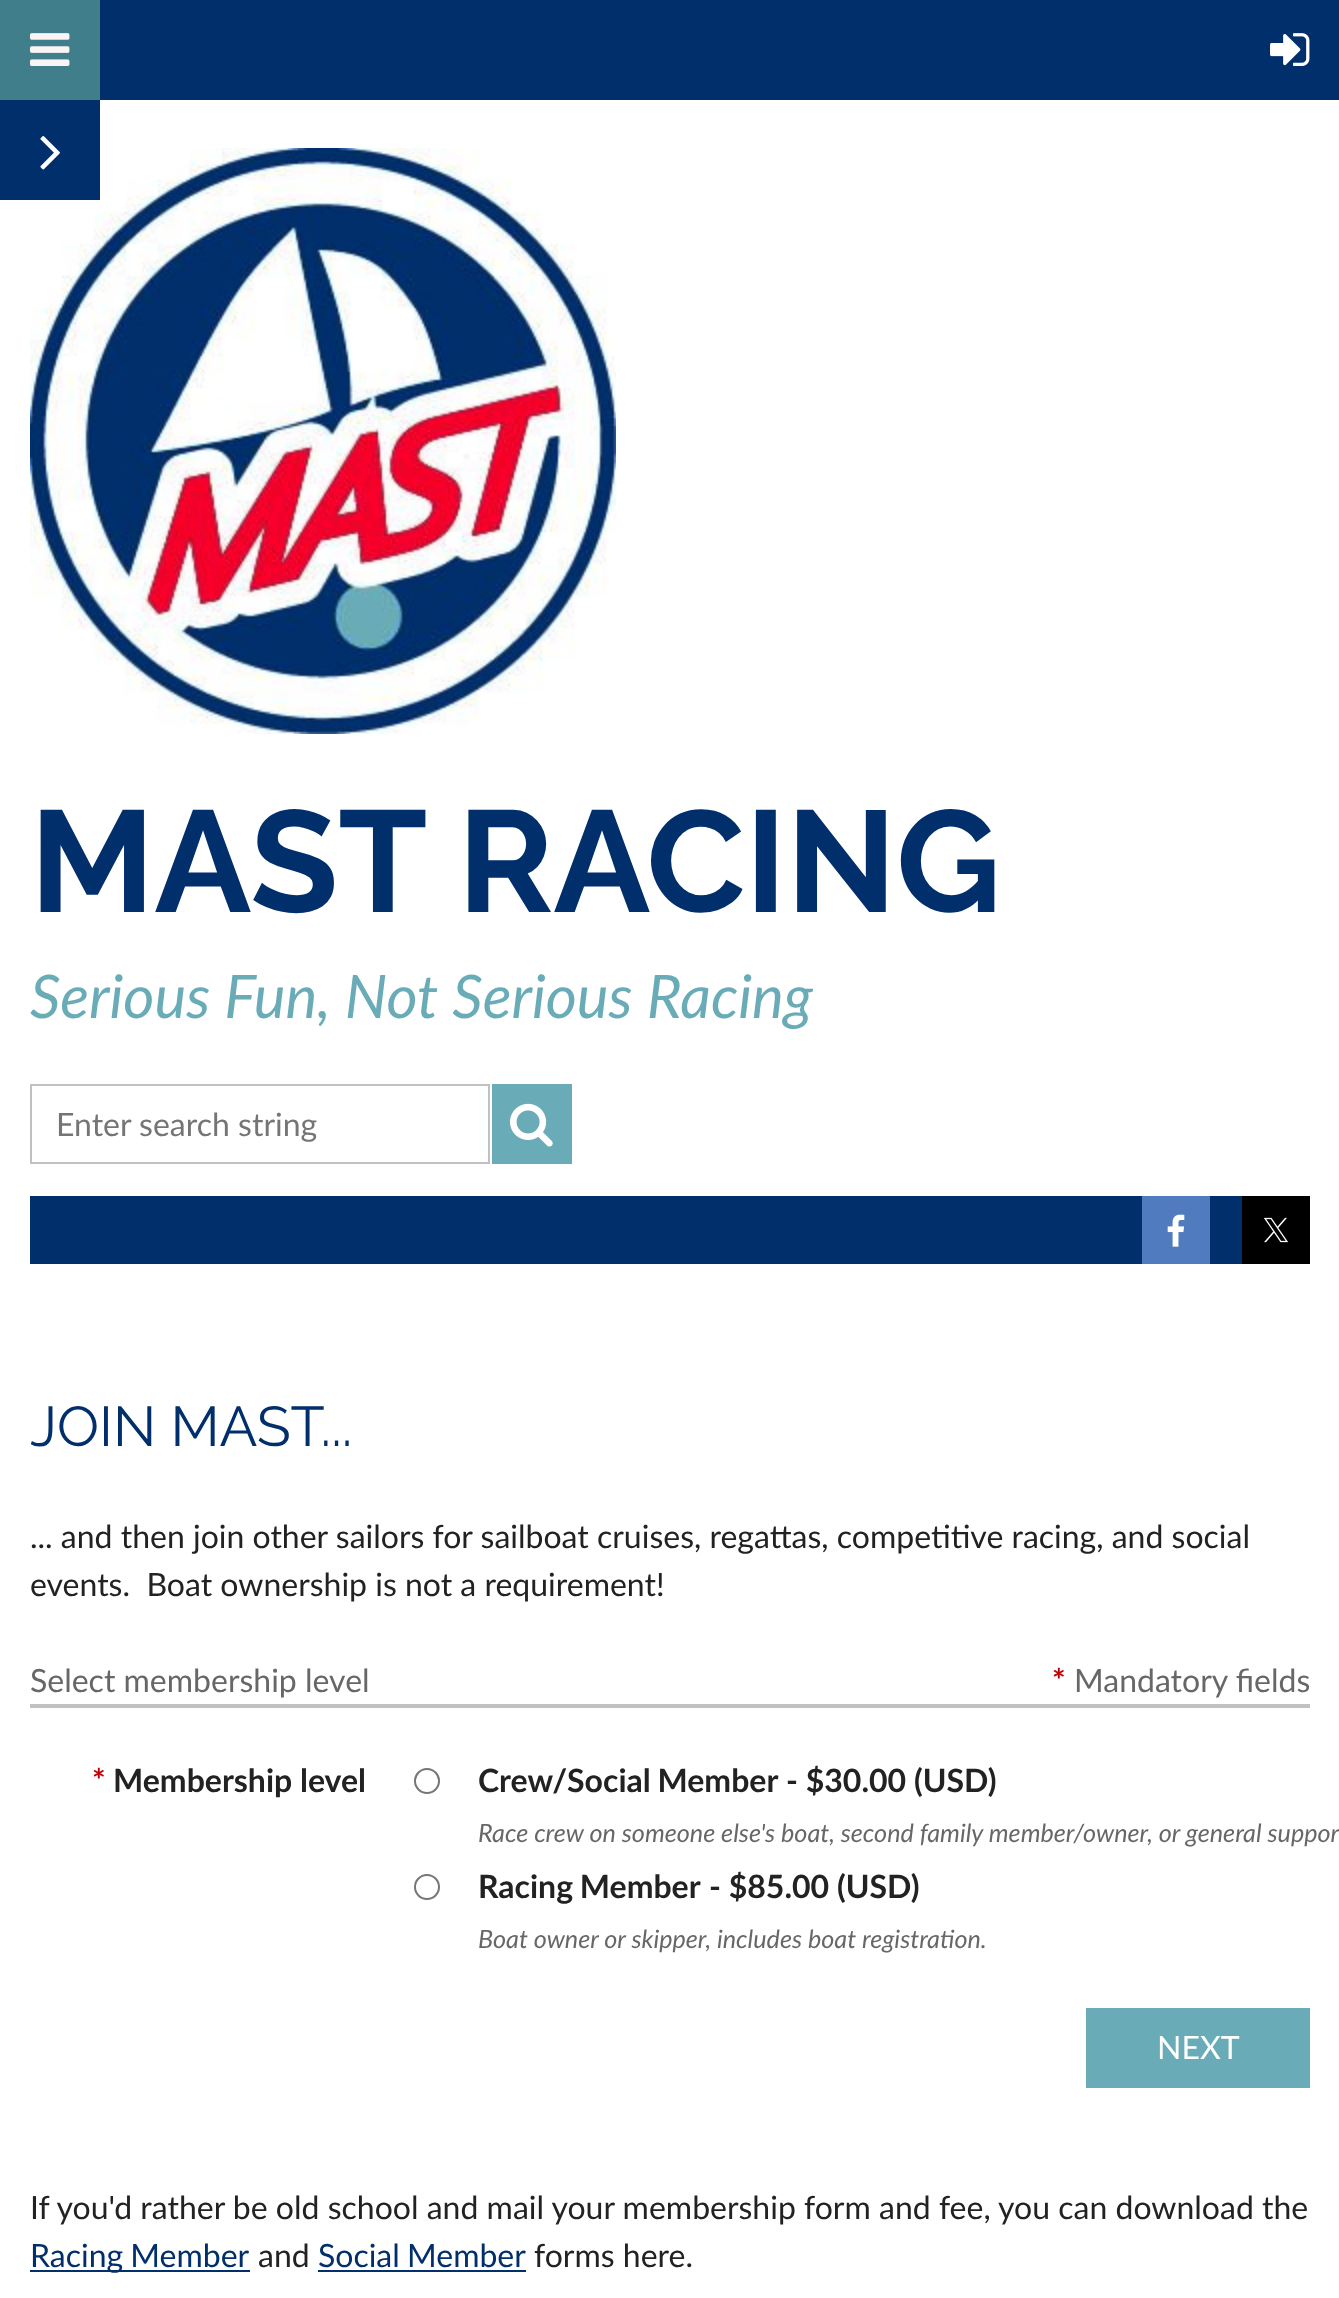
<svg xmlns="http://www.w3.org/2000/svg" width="1339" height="2298">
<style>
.a{font:bold 144px Raleway;fill:#002f6c}
.b{font:italic 60px Lato;fill:#69acb7}
.c{font:32px Lato;fill:#757575}
.d{font:56px Raleway;fill:#002f6c}
.e{font:32px Lato;fill:#222}
.f{font:32px Lato;fill:#676767}
.g{font:bold 32px Lato;fill:#be0004}
.h{font:bold 32px Lato;fill:#222}
.i{font:italic 25.2px Lato;fill:#676767}
.j{font:32px Lato;fill:#fff}
.k{font:32px Lato;fill:#002f6c}
</style>
<rect width="100%" height="100%" fill="#fff"/>
<image href="4.png" x="30" y="148" width="586" height="586"/>
<path fill="#002f6c" d="M0 100h100v100H0z"/>
<image href="1.png" x="40" y="136" width="20" height="34"/>
<path fill="#002f6c" d="M100 0h1239v100H100z"/>
<path fill="#3f7e8a" d="M0 0h100v100H0z"/>
<image href="2.png" x="30" y="33" width="40" height="33"/>
<image href="3.png" x="1270" y="33" width="40" height="33"/>
<path fill="none" stroke="#c1c1c1" stroke-width="2" d="M31 1085h458v78H31z"/>
<path fill="#69acb7" d="M492 1084h80v80H492z"/>
<image href="5.png" x="510" y="1103" width="43" height="44"/>
<path fill="#002f6c" d="M30 1196h1212v68H30z"/>
<path fill="#507bbe" d="M1142 1196h68v68H1142z"/>
<image href="6.png" x="1167" y="1214" width="18" height="33"/>
<path fill="#000" d="M1242 1196h68v68H1242z"/>
<image href="7.png" x="1264" y="1217" width="24" height="26"/>
<path fill="#c1c1c1" d="M30 1704h1280v4H30z"/>
<circle fill="none" stroke="#767676" stroke-width="2" cx="427" cy="1781" r="12"/>
<circle fill="none" stroke="#767676" stroke-width="2" cx="427" cy="1887" r="12"/>
<path fill="#69acb7" d="M1086 2008h224v80H1086z"/>
<path fill="#002f6c" d="M30 2270h220v2H30z"/>
<path fill="#002f6c" d="M318 2270h208v2H318z"/>
<text class="a" x="30" y="912">MAST RACING</text>
<text class="b" x="30" y="1018">Serious Fun, Not Serious Racing</text>
<text class="c" x="56" y="1136">Enter search string</text>
<text class="d" x="30" y="1446">JOIN MAST...</text>
<text class="e" x="30" y="1548">... and then join other sailors for sailboat cruises, regattas, competitive racing, and social</text>
<text class="e" xml:space="preserve" x="30" y="1596">events.  Boat ownership is not a requirement!</text>
<text class="f" x="30" y="1692">Select membership level</text>
<text class="g" x="1052" y="1692">*</text>
<text class="f" x="1074" y="1692">Mandatory fields</text>
<text class="g" x="92" y="1792">*</text>
<text class="h" x="113" y="1792">Membership level</text>
<text class="h" x="478" y="1792" word-spacing="-1">Crew/Social Member</text>
<text class="h" x="786" y="1792">- $30.00 (USD)</text>
<text class="i" x="478" y="1842">Race crew on someone else's boat, second family member/owner, or general suppor</text>
<text class="h" x="478" y="1898" word-spacing="-1">Racing Member</text>
<text class="h" x="709" y="1898">- $85.00 (USD)</text>
<text class="i" x="478" y="1948">Boat owner or skipper, includes boat registration.</text>
<text class="j" x="1157" y="2059">NEXT</text>
<text class="e" x="30" y="2219">If you'd rather be old school and mail your membership form and fee, you can download the</text>
<text class="k" x="30" y="2267" word-spacing="-1">Racing Member</text>
<text class="e" x="258" y="2267">and</text>
<text class="k" x="318" y="2267" word-spacing="-1">Social Member</text>
<text class="e" x="534" y="2267">forms here.</text>
</svg>
